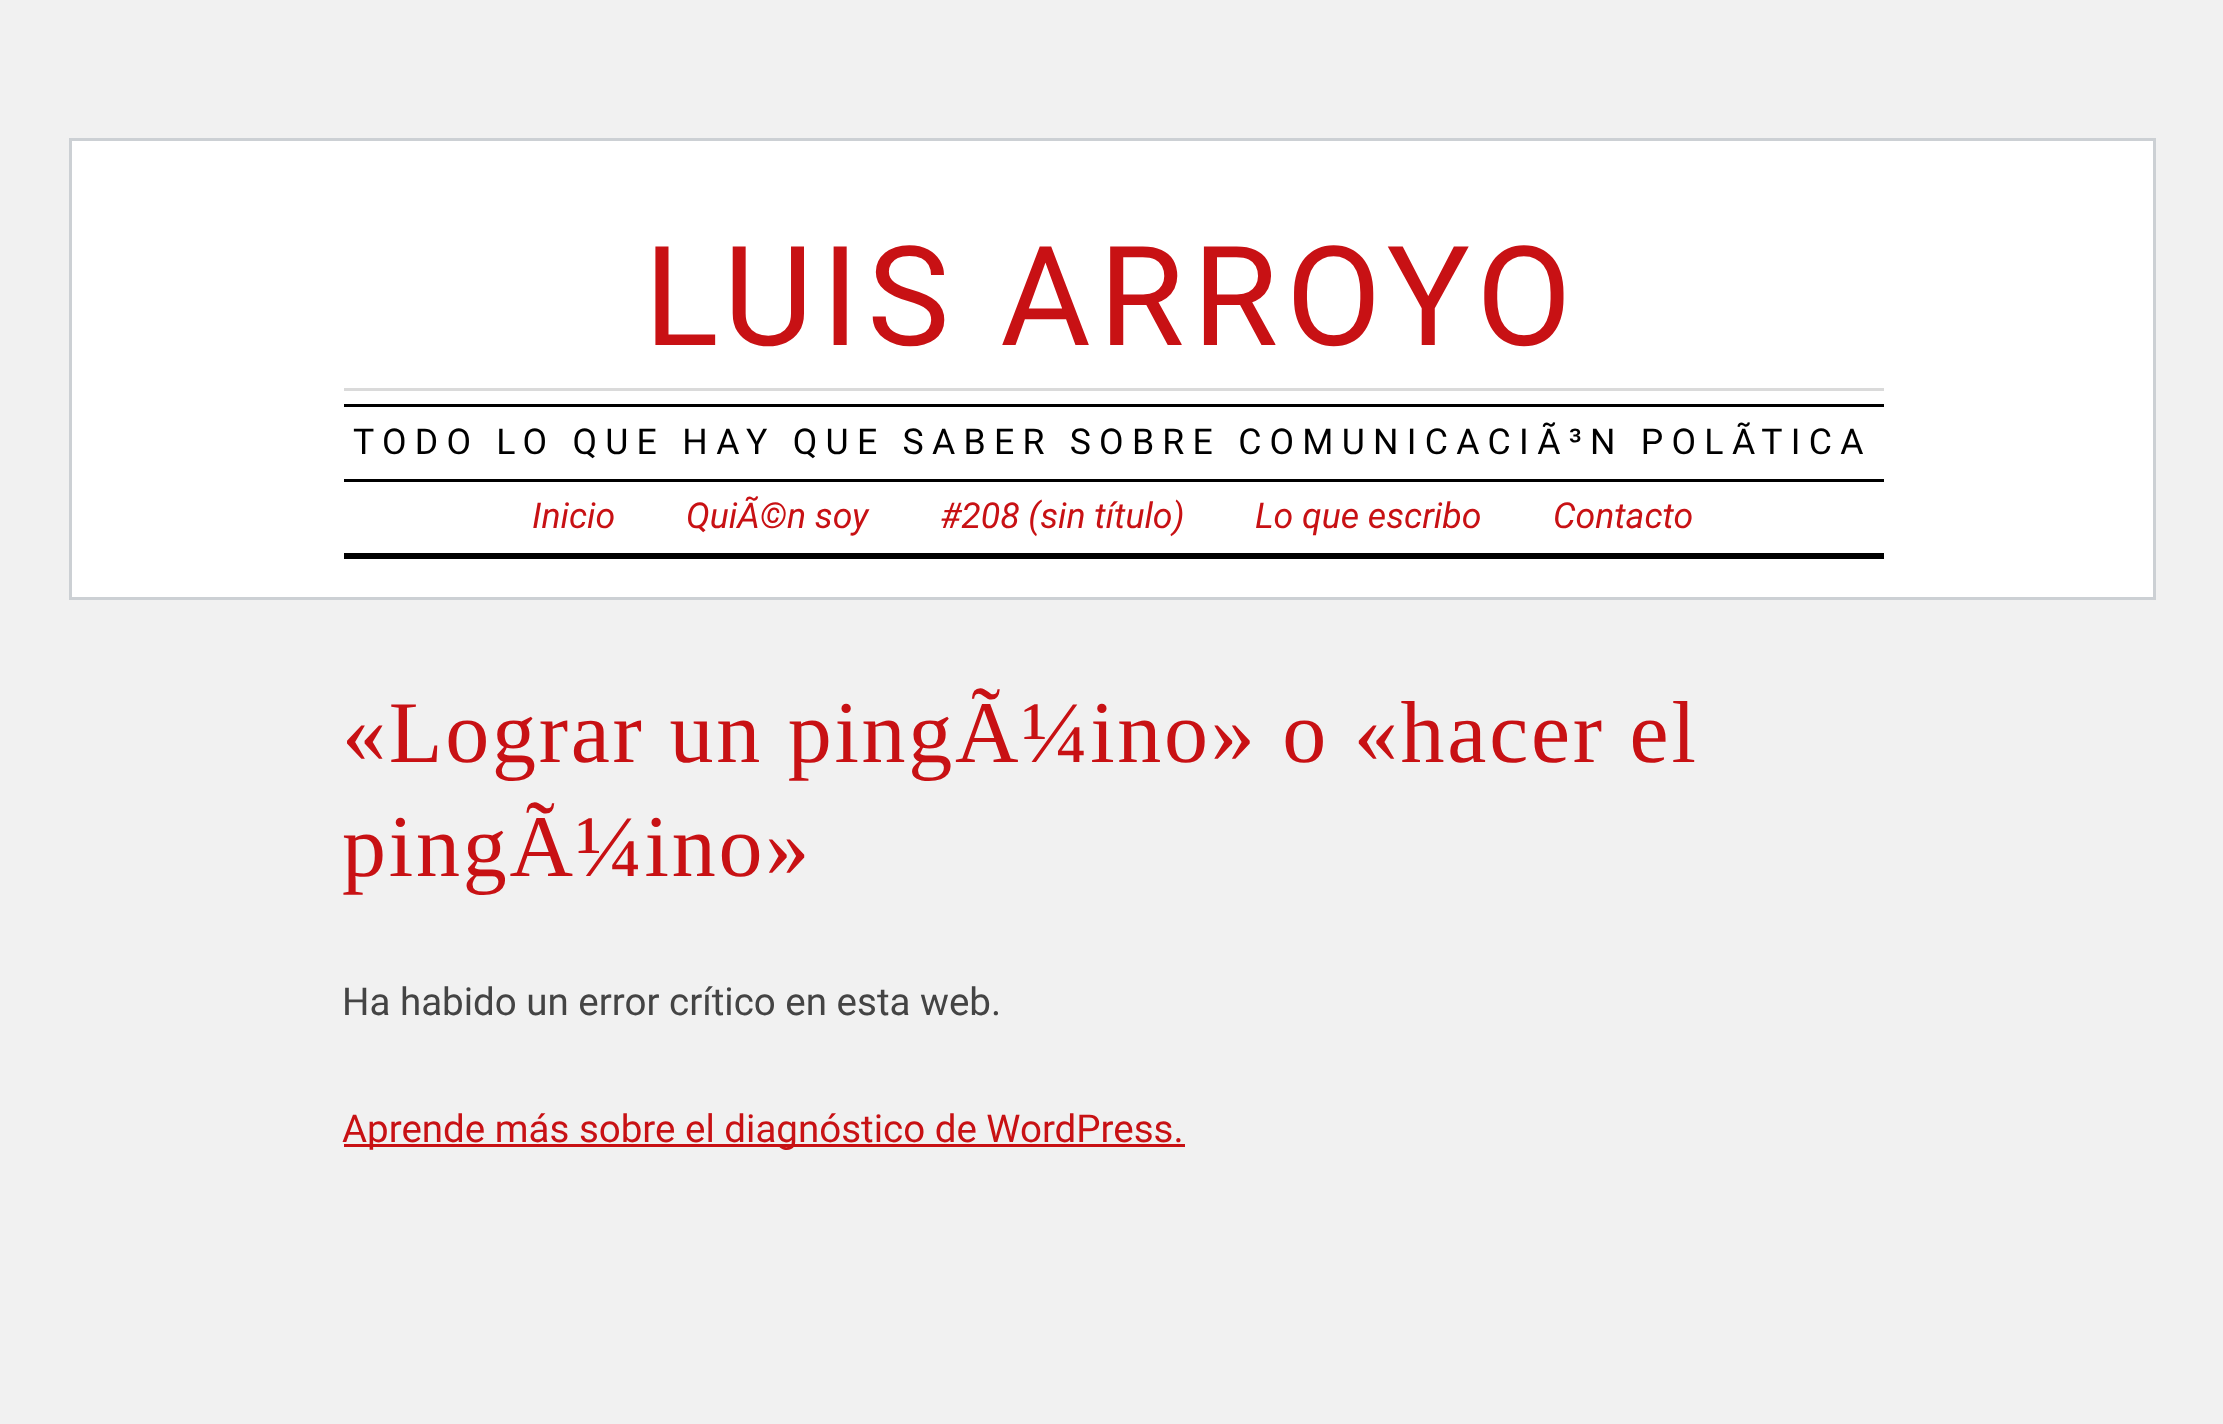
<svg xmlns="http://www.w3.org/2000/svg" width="2223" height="1424">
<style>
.a{font:138.5px Roboto;letter-spacing:8.25px;fill:#c81114}
.b{font:35.65px Roboto;letter-spacing:8.25px;fill:#000}
.c{font:italic 35.65px Roboto;fill:#c81114}
.d{font:88px Liberation Serif;letter-spacing:2.75px;fill:#c81114}
.e{font:38.5px Roboto;fill:#444}
.f{font:38.5px Roboto;fill:#c81114}
</style>
<rect width="100%" height="100%" fill="#f1f1f1"/>
<path fill="#fff" stroke="#ccd0d4" stroke-width="3" d="M70.5 139.5h2084v459H70.5z"/>
<path fill="#dadada" d="M344 388h1540v3H344z"/>
<path fill="#000" d="M344 404h1540v3H344z"/>
<path fill="#000" d="M344 479h1540v3H344z"/>
<path fill="#000" d="M344 553h1540v6H344z"/>
<path fill="#c81114" d="M344 1144h841v3H344z"/>
<text class="a" x="644" y="345">LUIS ARROYO</text>
<text class="b" x="353" y="454">TODO LO QUE HAY QUE SABER SOBRE COMUNICACIÃ³N POLÃTICA</text>
<text class="c" x="532" y="528">Inicio</text>
<text class="c" x="686" y="528">QuiÃ©n soy</text>
<text class="c" x="940" y="528">#208 (sin título)</text>
<text class="c" x="1255" y="528">Lo que escribo</text>
<text class="c" x="1553" y="528">Contacto</text>
<text class="d" x="342" y="762">«Lograr un pingÃ¼ino» o «hacer el</text>
<text class="d" x="342" y="876">pingÃ¼ino»</text>
<text class="e" x="342" y="1015">Ha habido un error crítico en esta web.</text>
<text class="f" x="342" y="1142">Aprende más sobre el diagnóstico de WordPress.</text>
</svg>
